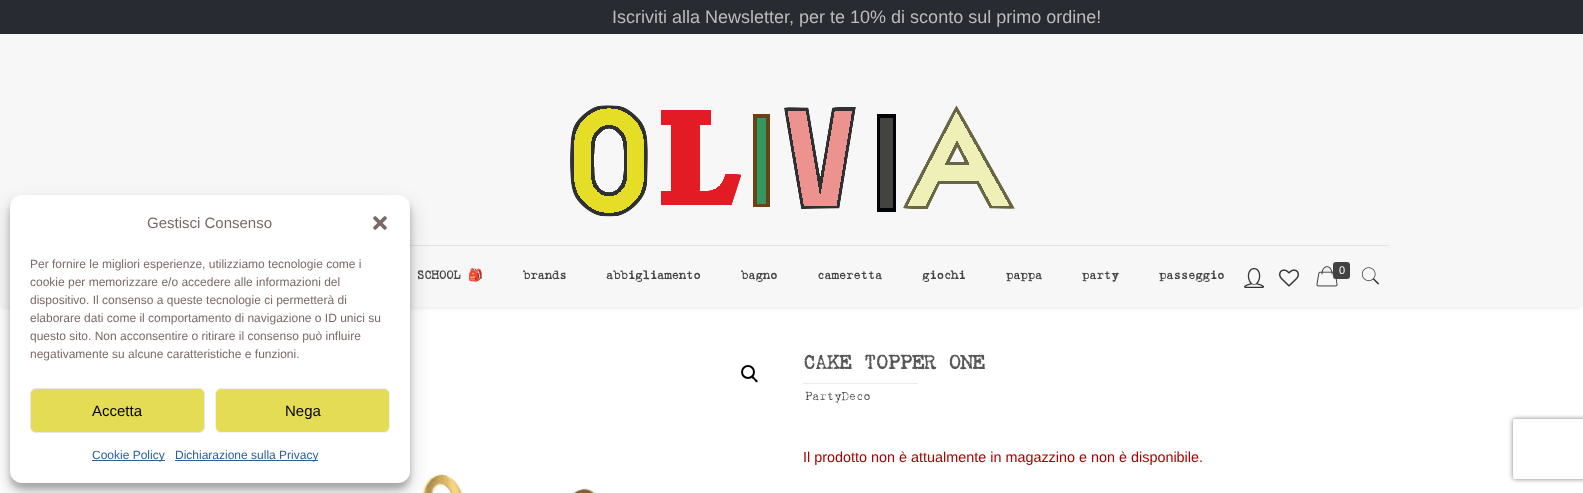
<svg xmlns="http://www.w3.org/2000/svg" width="1583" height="493">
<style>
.a{font:15px Liberation Sans;fill:#7b6969}
.b{font:12px Liberation Sans;fill:#7b6969}
.c{font:15px Liberation Sans;fill:#000}
.d{font:12px Liberation Sans;fill:#285f9c}
.e{font:18px Liberation Sans;fill:#bbb}
.f{font:bold 12px 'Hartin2';fill:#424242}
.g{font:bold 12px Noto Color Emoji;fill:#424242}
.h{font:11px Liberation Sans;fill:#fff}
.i{font:bold 20px 'Hartin2';fill:#565656}
.j{font:12px 'Hartin2';fill:#424242}
.k{font:14.4px Liberation Sans;fill:#a00}
</style>
<defs>
<clipPath id="clip1"><path d="M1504 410h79v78h-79zm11 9h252c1 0 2 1 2 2v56c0 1-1 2-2 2h-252c-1 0-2-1-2-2v-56c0-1 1-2 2-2z" clip-rule="evenodd"/></clipPath>
</defs>
<rect width="100%" height="100%" fill="#fff"/>
<path fill="#0000000f" filter="blur(1.5px)" d="M2 51h1579v258H2z"/>
<path fill="#f7f7f7" d="M0 45h1583v262H0z"/>
<path fill="#e3e3e3" d="M410 245h979v1H410z"/>
<rect fill="#0000003b" filter="blur(3px)" x="10" y="201" width="400" height="288" rx="12"/>
<image href="7.png" x="421" y="474" width="174" height="19"/>
<rect fill="#00000030" filter="blur(10px)" x="10" y="205" width="400" height="288" rx="12"/>
<rect fill="#fff" x="10" y="195" width="400" height="288" rx="12"/>
<image href="1.png" x="373" y="216" width="14" height="14"/>
<rect fill="#e4dc55" stroke="#e3e8e8" x="30.5" y="388.5" width="174" height="44" rx="5.5"/>
<rect fill="#e4dc55" stroke="#f2f2f2" x="215.5" y="388.5" width="174" height="44" rx="5.5"/>
<path fill="#285f9c" d="M92 460h73v1H92z"/>
<path fill="#285f9c" d="M175 460h143v1H175z"/>
<path fill="#292b33" d="M0 0h1583v34H0z"/>
<image href="2.png" x="570" y="105" width="445" height="112"/>
<image href="3.png" x="1244" y="268" width="20" height="20"/>
<image href="4.png" x="1279" y="269" width="20" height="18"/>
<image href="5.png" x="1316" y="266" width="22" height="21"/>
<rect fill="#424242" x="1333" y="262" width="17" height="17" rx="3"/>
<image href="6.png" x="1361" y="267" width="19" height="18"/>
<path fill="#f7f7f7" d="M0 34h1583v11H0z"/>
<circle fill="none" stroke="#000" stroke-width="2" cx="748" cy="372" r="6"/>
<path fill="#000" d="M751.5 376c1.5-1 3 1.5 3.5 2.5c1 .5 3.5 2 2.5 3.5c-1.5 1-3-1.5-3.5-2.5c-1-.5-3.5-2-2.5-3.5z"/>
<path fill="#ebebeb" d="M803 383h115v1H803z"/>
<g clip-path="url(#clip1)">
<rect fill="#808080" filter="blur(2.5px)" x="1513" y="419" width="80" height="60" rx="2"/>
</g>
<text class="a" x="147" y="228">Gestisci Consenso</text>
<text class="b" x="30" y="268">Per fornire le migliori esperienze, utilizziamo tecnologie come i</text>
<text class="b" x="30" y="286">cookie per memorizzare e/o accedere alle informazioni del</text>
<text class="b" x="30" y="304">dispositivo. Il consenso a queste tecnologie ci permetterà di</text>
<text class="b" x="30" y="322">elaborare dati come il comportamento di navigazione o ID unici su</text>
<text class="b" x="30" y="340">questo sito. Non acconsentire o ritirare il consenso può influire</text>
<text class="b" x="30" y="358">negativamente su alcune caratteristiche e funzioni.</text>
<text class="c" x="92" y="416">Accetta</text>
<text class="c" x="285" y="416">Nega</text>
<text class="d" x="92" y="459">Cookie Policy</text>
<text class="d" x="175" y="459">Dichiarazione sulla Privacy</text>
<text class="e" x="612" y="23">Iscriviti alla Newsletter, per te 10% di sconto sul primo ordine!</text>
<text class="f" x="417" y="279">SCHOOL</text>
<text class="g" x="468" y="279">🎒</text>
<text class="f" x="523" y="279">brands</text>
<text class="f" x="606" y="279">abbigliamento</text>
<text class="f" x="741" y="279">bagno</text>
<text class="f" x="817" y="279">cameretta</text>
<text class="f" x="922" y="279">giochi</text>
<text class="f" x="1006" y="279">pappa</text>
<text class="f" x="1082" y="279">party</text>
<text class="f" x="1159" y="279">passeggio</text>
<text class="h" x="1339" y="274">0</text>
<text class="i" x="803" y="369">CAKE TOPPER ONE</text>
<text class="j" x="805" y="400">PartyDeco</text>
<text class="k" x="803" y="462">Il prodotto non è attualmente in magazzino e non è disponibile.</text>
</svg>
